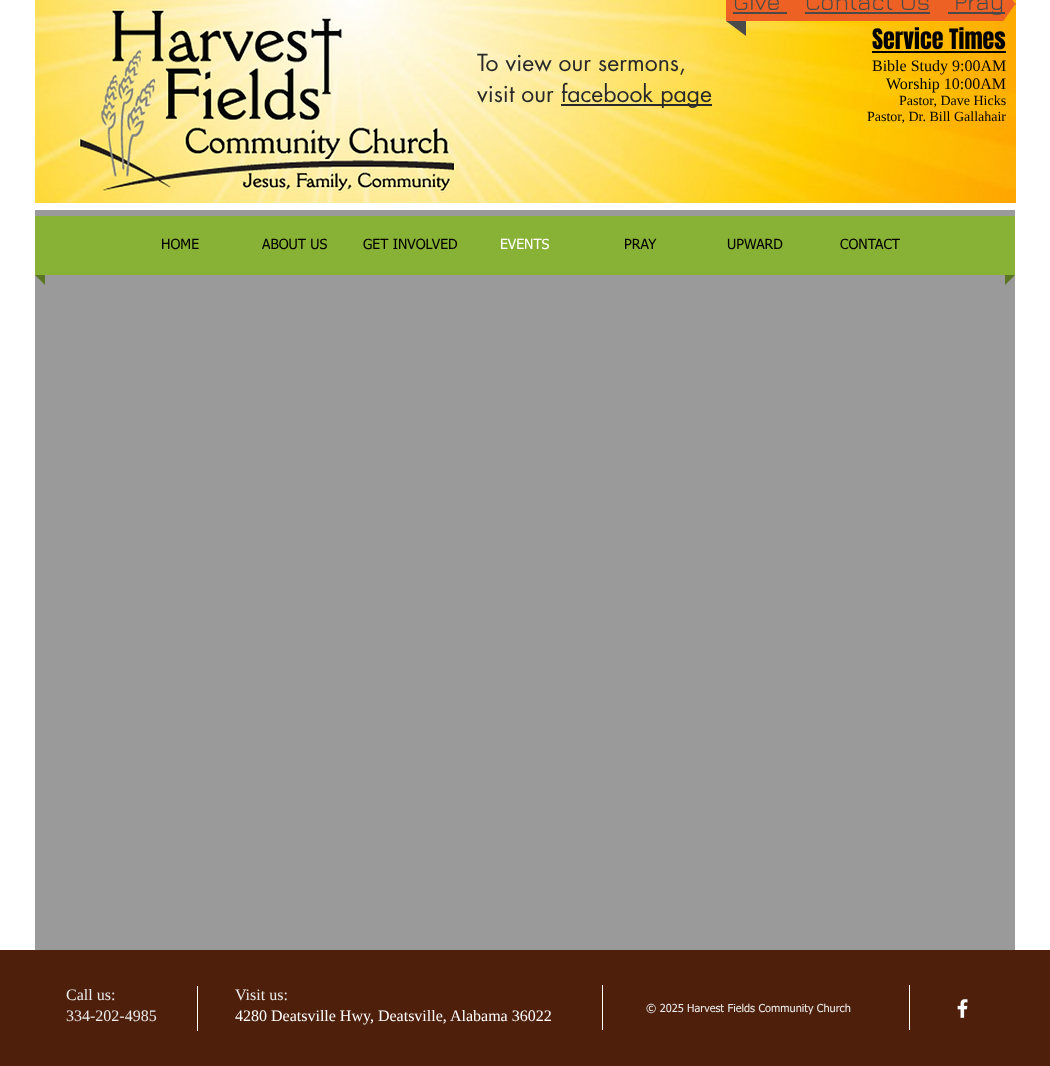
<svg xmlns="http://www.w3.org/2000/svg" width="1050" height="1066">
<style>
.a{font:24px Jura;fill:#4a4a4a}
.b{font:23px futura;fill:#292929}
.c{font:24px Anton;fill:#000}
.d{font:16px Liberation Serif;fill:#000}
.e{font:14px Liberation Serif;fill:#000}
.f{font:14px tahoma;fill:#000}
.g{font:14px tahoma;fill:#fff}
.h{font:16px Liberation Serif;fill:#eaeaea}
.i{font:16px Liberation Serif;fill:#fff}
.j{font:11px tahoma;fill:#eaeaea}
</style>
<defs>
<clipPath id="clip1"><path d="M726 0h290v21H726z"/></clipPath>
</defs>
<rect width="100%" height="100%" fill="#fff"/>
<image href="1.png" x="35" y="0" width="981" height="203"/>
<g clip-path="url(#clip1)">
<path fill="#ed6124" d="M376 3h640l-350 499h-290z"/>
<path fill="#ed6124" d="M1016 5h-640v-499h290z"/>
</g>
<path fill="#4a4a4a" d="M733 12h54v2H733z"/>
<path fill="#4a4a4a" d="M805 12h125v2H805z"/>
<path fill="#4a4a4a" d="M948 12h57v2H948z"/>
<path fill="#4a4a4a" d="M746 21v15l-20-15z"/>
<path fill="#292929" d="M561 104h151v2H561z"/>
<path fill="#000" d="M872 51h134v2H872z"/>
<path fill="#9a9a9a" d="M35 210h980v740H35z"/>
<path fill="#88b235" d="M35 216h980v59H35z"/>
<path fill="#5b7623" d="M35 275h10v10z"/>
<path fill="#5b7623" d="M1005 275h10l-10 10z"/>
<path fill="#4e200c" d="M0 950h1050v116H0z"/>
<path fill="#fff" d="M197 986h1v45H197z"/>
<path fill="#fff" d="M602 985h1v45H602z"/>
<path fill="#fff" d="M909 985h1v45H909z"/>
<image href="2.png" x="957" y="999" width="11" height="19"/>
<text class="a" x="733" y="10">Give</text>
<text class="a" x="805" y="10">Contact Us</text>
<text class="a" x="954" y="10">Pray</text>
<text class="b" x="477" y="71">To view our sermons,</text>
<text class="b" x="477" y="102">visit our</text>
<text class="b" x="561" y="102">facebook page</text>
<text class="c" x="872" y="49">Service Times</text>
<text class="d" x="872" y="71">Bible Study 9:00AM</text>
<text class="d" x="886" y="89">Worship 10:00AM</text>
<text class="e" x="899" y="105">Pastor, Dave Hicks</text>
<text class="e" x="867" y="121">Pastor, Dr. Bill Gallahair</text>
<text class="f" x="161" y="249">HOME</text>
<text class="f" x="262" y="249">ABOUT US</text>
<text class="f" x="363" y="249">GET INVOLVED</text>
<text class="g" x="500" y="249">EVENTS</text>
<text class="f" x="624" y="249">PRAY</text>
<text class="f" x="727" y="249">UPWARD</text>
<text class="f" x="840" y="249">CONTACT</text>
<text class="h" x="66" y="1000">Call us:</text>
<text class="h" x="66" y="1021">334-202-4985</text>
<text class="h" x="235" y="1000">Visit us:</text>
<text class="i" x="235" y="1021">4280 Deatsville Hwy, Deatsville, Alabama 36022</text>
<text class="j" x="646" y="1012">© 2025 Harvest Fields Community Church</text>
</svg>
